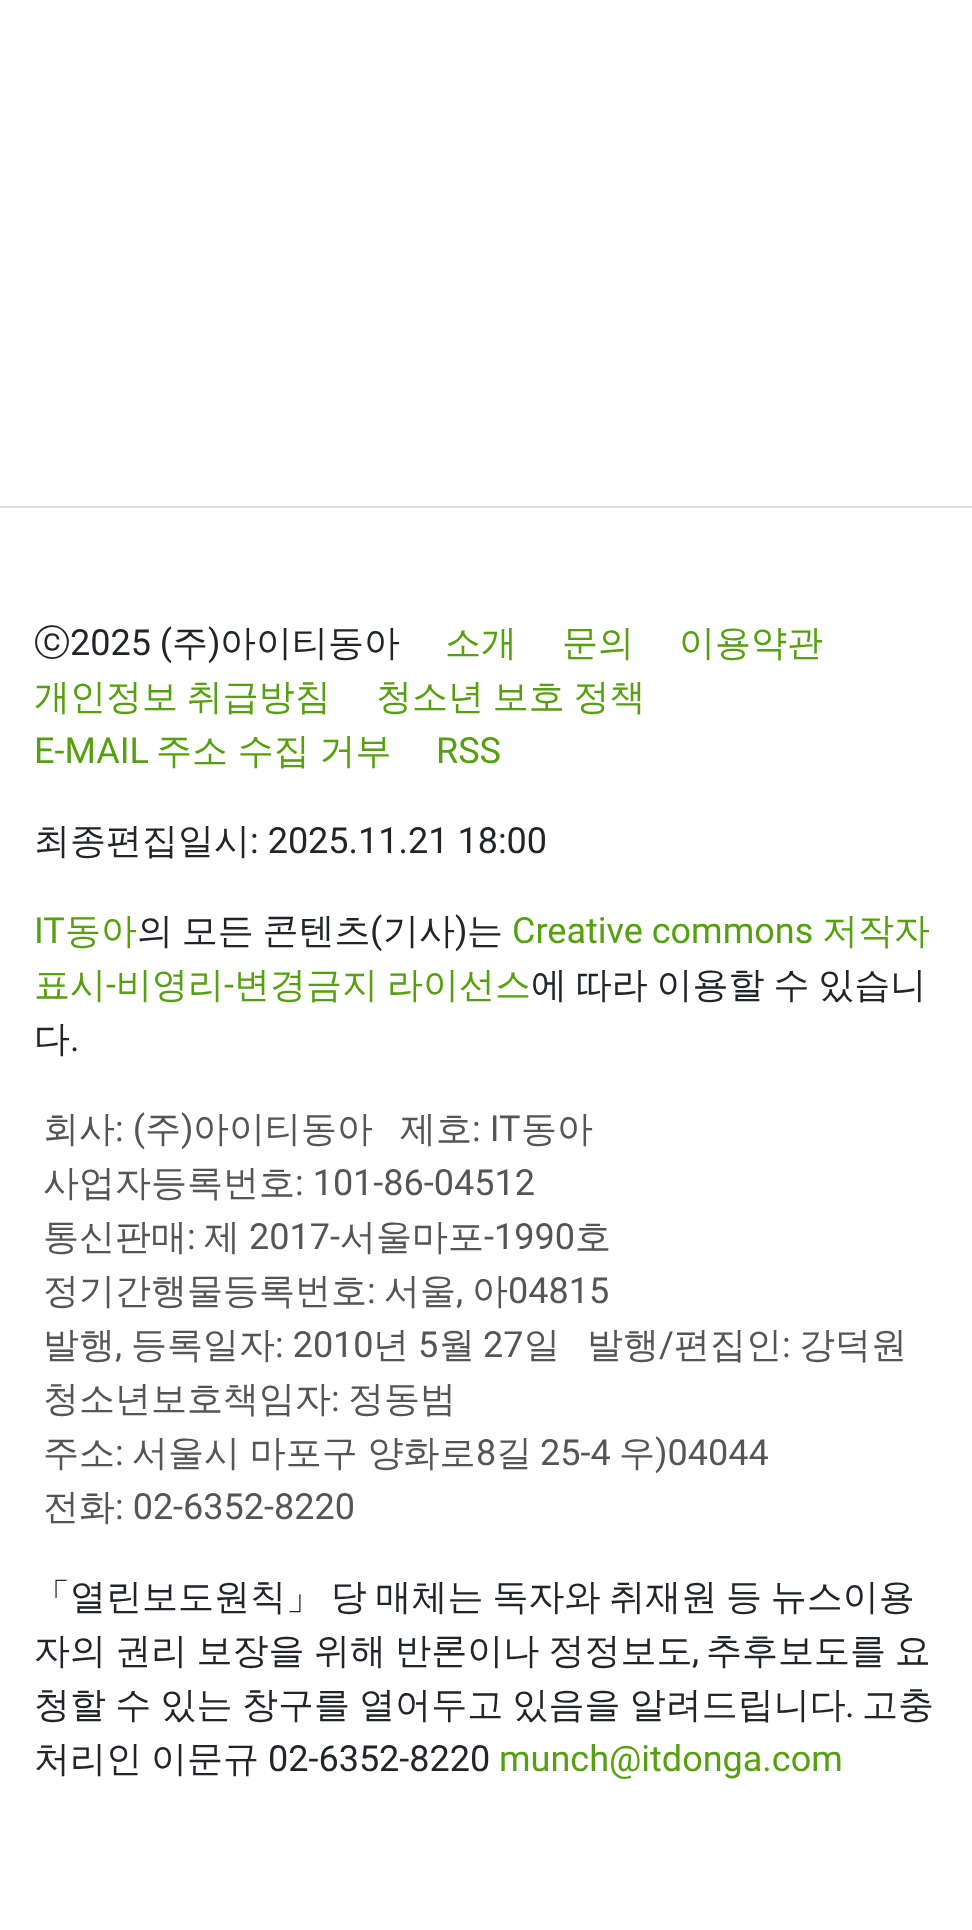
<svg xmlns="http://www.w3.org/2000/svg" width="972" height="1930">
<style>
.a{font:500 36px WenQuanYi Zen Hei;fill:#212529}
.b{font:36px Roboto;fill:#212529}
.c{font:500 36px WenQuanYi Zen Hei;fill:#56a00f}
.d{font:36px Roboto;fill:#56a00f}
.e{font:500 36px WenQuanYi Zen Hei;fill:#555}
.f{font:36px Roboto;fill:#555}
</style>
<rect width="100%" height="100%" fill="#fff"/>
<path fill="#ddd" d="M0 506h972v2H0z"/>
<text class="a" x="34" y="655">ⓒ</text>
<text class="b" x="70" y="655">2025 (</text>
<text class="a" x="172" y="655">주</text>
<text class="b" x="208" y="655">)</text>
<text class="a" x="220" y="655">아이티동아</text>
<text class="c" x="445" y="655">소개</text>
<text class="c" x="562" y="655">문의</text>
<text class="c" x="679" y="655">이용약관</text>
<text class="c" x="34" y="709" word-spacing="-2">개인정보 취급방침</text>
<text class="c" x="376" y="709" word-spacing="-2">청소년 보호 정책</text>
<text class="d" x="34" y="763">E-MAIL</text>
<text class="c" x="156" y="763" word-spacing="-1">주소 수집 거부</text>
<text class="d" x="436" y="763">RSS</text>
<text class="a" x="34" y="853">최종편집일시</text>
<text class="b" x="250" y="853">: 2025.11.21 18:00</text>
<text class="d" x="34" y="943">IT</text>
<text class="c" x="65" y="943">동아</text>
<text class="a" x="137" y="943" word-spacing="-2">의 모든 콘텐츠</text>
<text class="b" x="370" y="943">(</text>
<text class="a" x="383" y="943">기사</text>
<text class="b" x="455" y="943">)</text>
<text class="a" x="467" y="943">는</text>
<text class="d" x="512" y="943">Creative commons</text>
<text class="c" x="822" y="943">저작자</text>
<text class="c" x="34" y="997">표시</text>
<text class="d" x="106" y="997">-</text>
<text class="c" x="116" y="997">비영리</text>
<text class="d" x="224" y="997">-</text>
<text class="c" x="234" y="997">변경금지</text>
<text class="c" x="387" y="997">라이선스</text>
<text class="a" x="531" y="997" word-spacing="-2">에 따라 이용할 수 있습니</text>
<text class="a" x="34" y="1051">다</text>
<text class="b" x="70" y="1051">.</text>
<text class="e" x="43" y="1141">회사</text>
<text class="f" x="115" y="1141">: (</text>
<text class="e" x="145" y="1141">주</text>
<text class="f" x="181" y="1141">)</text>
<text class="e" x="193" y="1141">아이티동아</text>
<text class="e" x="400" y="1141">제호</text>
<text class="f" x="472" y="1141">: IT</text>
<text class="e" x="521" y="1141">동아</text>
<text class="e" x="43" y="1195">사업자등록번호</text>
<text class="f" x="295" y="1195">: 101-86-04512</text>
<text class="e" x="43" y="1249">통신판매</text>
<text class="f" x="187" y="1249">:</text>
<text class="e" x="204" y="1249">제</text>
<text class="f" x="249" y="1249">2017-</text>
<text class="e" x="340" y="1249">서울마포</text>
<text class="f" x="484" y="1249">-1990</text>
<text class="e" x="575" y="1249">호</text>
<text class="e" x="43" y="1303">정기간행물등록번호</text>
<text class="f" x="367" y="1303">:</text>
<text class="e" x="384" y="1303">서울</text>
<text class="f" x="456" y="1303">,</text>
<text class="e" x="472" y="1303">아</text>
<text class="f" x="508" y="1303">04815</text>
<text class="e" x="43" y="1357">발행</text>
<text class="e" x="131" y="1357">등록일자</text>
<text class="f" x="275" y="1357">: 2010</text>
<text class="e" x="373" y="1357">년</text>
<text class="f" x="418" y="1357">5</text>
<text class="e" x="439" y="1357">월</text>
<text class="f" x="483" y="1357">27</text>
<text class="e" x="524" y="1357">일</text>
<text class="f" x="115" y="1357">,</text>
<text class="e" x="587" y="1357">발행</text>
<text class="f" x="659" y="1357">/</text>
<text class="e" x="674" y="1357">편집인</text>
<text class="f" x="782" y="1357">:</text>
<text class="e" x="799" y="1357">강덕원</text>
<text class="e" x="43" y="1411">청소년보호책임자</text>
<text class="f" x="331" y="1411">:</text>
<text class="e" x="348" y="1411">정동범</text>
<text class="e" x="43" y="1465">주소</text>
<text class="f" x="115" y="1465">:</text>
<text class="e" x="132" y="1465" word-spacing="-1">서울시 마포구 양화로</text>
<text class="f" x="476" y="1465">8</text>
<text class="e" x="496" y="1465">길</text>
<text class="f" x="540" y="1465">25-4</text>
<text class="e" x="619" y="1465">우</text>
<text class="f" x="655" y="1465">)04044</text>
<text class="e" x="43" y="1519">전화</text>
<text class="f" x="115" y="1519">: 02-6352-8220</text>
<text class="a" x="34" y="1609" word-spacing="-2">「열린보도원칙」 당 매체는 독자와 취재원 등 뉴스이용</text>
<text class="a" x="34" y="1663" word-spacing="-1.5">자의 권리 보장을 위해 반론이나 정정보도</text>
<text class="b" x="692" y="1663">,</text>
<text class="a" x="706" y="1663" word-spacing="-2">추후보도를 요</text>
<text class="a" x="34" y="1717" word-spacing="-1.5">청할 수 있는 창구를 열어두고 있음을 알려드립니다</text>
<text class="b" x="845" y="1717">.</text>
<text class="a" x="862" y="1717">고충</text>
<text class="a" x="34" y="1771">처리인</text>
<text class="a" x="151" y="1771">이문규</text>
<text class="b" x="268" y="1771">02-6352-8220</text>
<text class="d" x="499" y="1771">munch@itdonga.com</text>
</svg>
